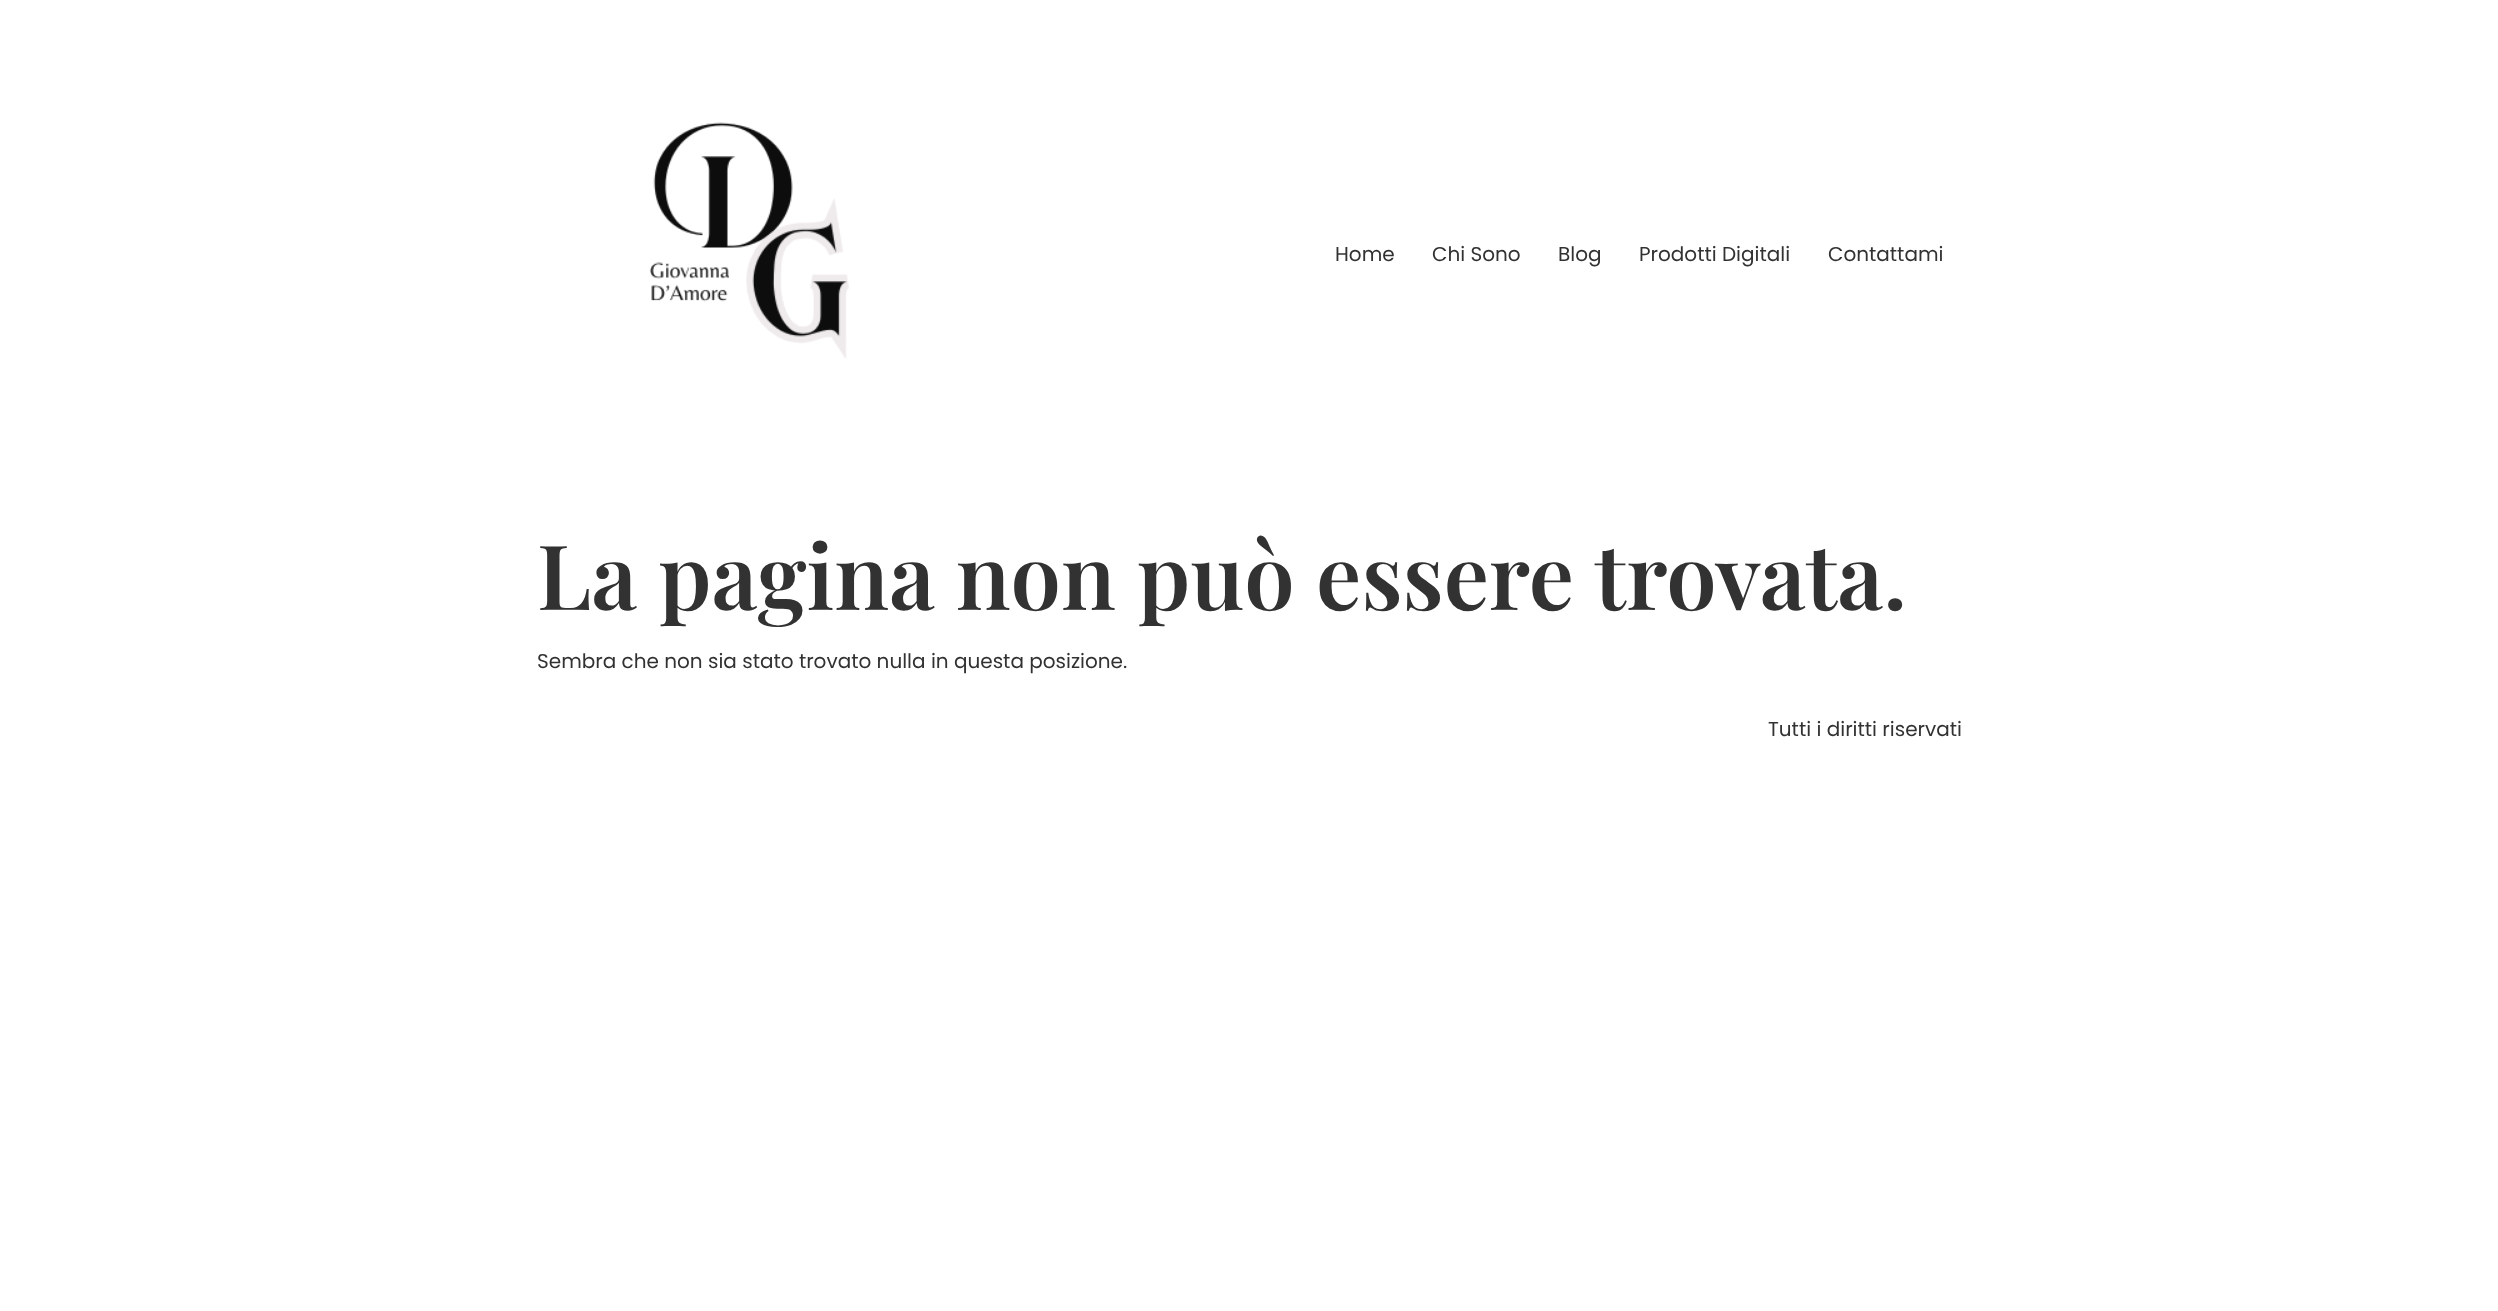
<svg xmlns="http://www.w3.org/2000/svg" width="2498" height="1311">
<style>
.a{font:20px Poppins;fill:#323232}
.b{font:600 90px Playfair Display;fill:#323232}
</style>
<rect width="100%" height="100%" fill="#fff"/>
<image href="1.png" x="649" y="122" width="200" height="237"/>
<text class="a" x="1335" y="261">Home</text>
<text class="a" x="1432" y="261">Chi Sono</text>
<text class="a" x="1558" y="261">Blog</text>
<text class="a" x="1639" y="261">Prodotti Digitali</text>
<text class="a" x="1828" y="261">Contattami</text>
<text class="b" x="537" y="610">La pagina non può essere trovata.</text>
<text class="a" x="537" y="668">Sembra che non sia stato trovato nulla in questa posizione.</text>
<text class="a" x="1768" y="736">Tutti i diritti riservati</text>
</svg>
